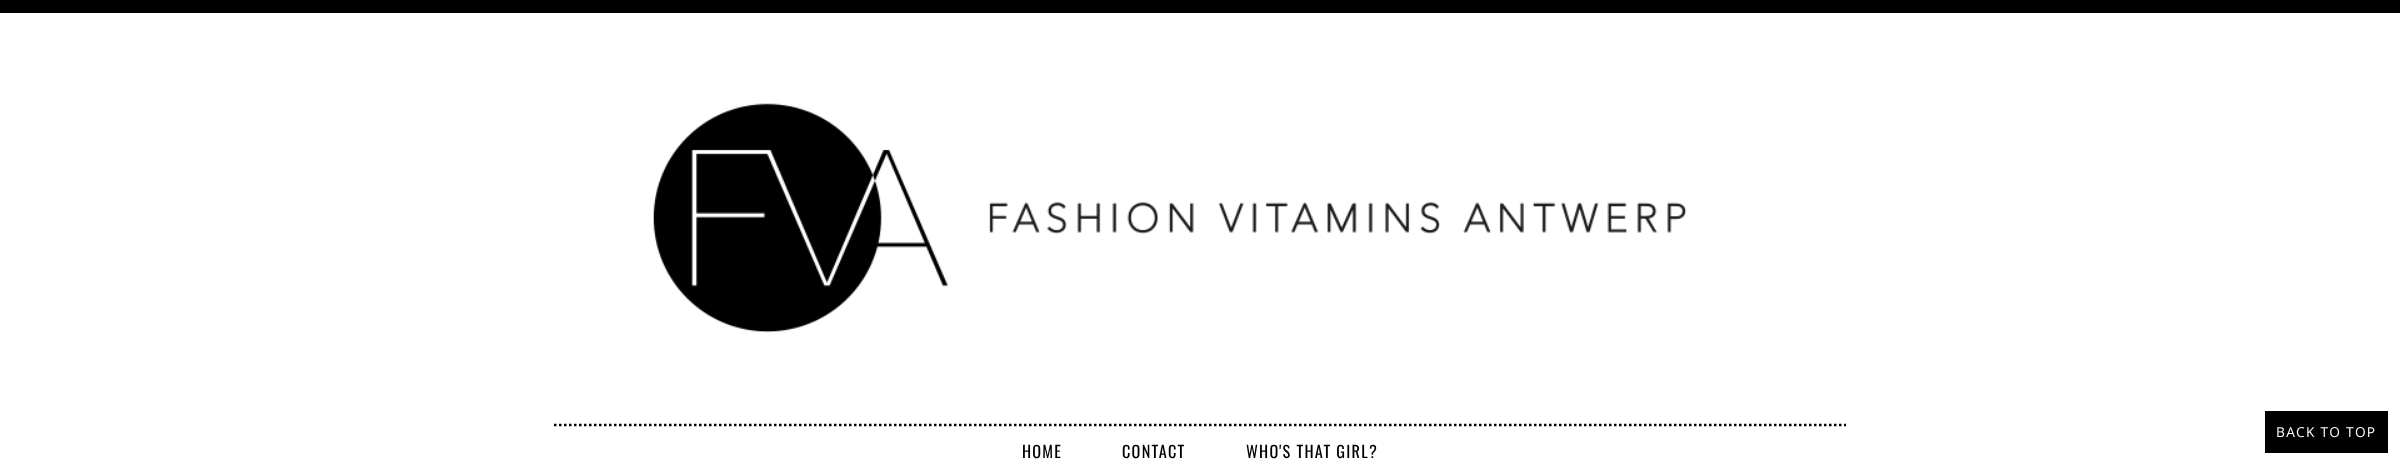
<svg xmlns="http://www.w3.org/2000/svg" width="2400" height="465">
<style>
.a{font:13.75px Open Sans;letter-spacing:1.25px;fill:#fff}
.b{font:16.25px Oswald;letter-spacing:1.25px;fill:#000}
</style>
<rect width="100%" height="100%" fill="#fff"/>
<path fill="#000" d="M0 0h2400v13H0z"/>
<path fill="#000" d="M2265 411h123v42H2265z"/>
<image href="1.png" x="653" y="103" width="1034" height="230"/>
<path fill="none" stroke="#000" stroke-width="2.5" stroke-dasharray="2.5 2.5" d="M554 425h1292"/>
<text class="a" x="2276" y="437">BACK TO TOP</text>
<text class="b" x="1022" y="458">HOME</text>
<text class="b" x="1122" y="458">CONTACT</text>
<text class="b" x="1246" y="458">WHO'S THAT GIRL?</text>
</svg>
